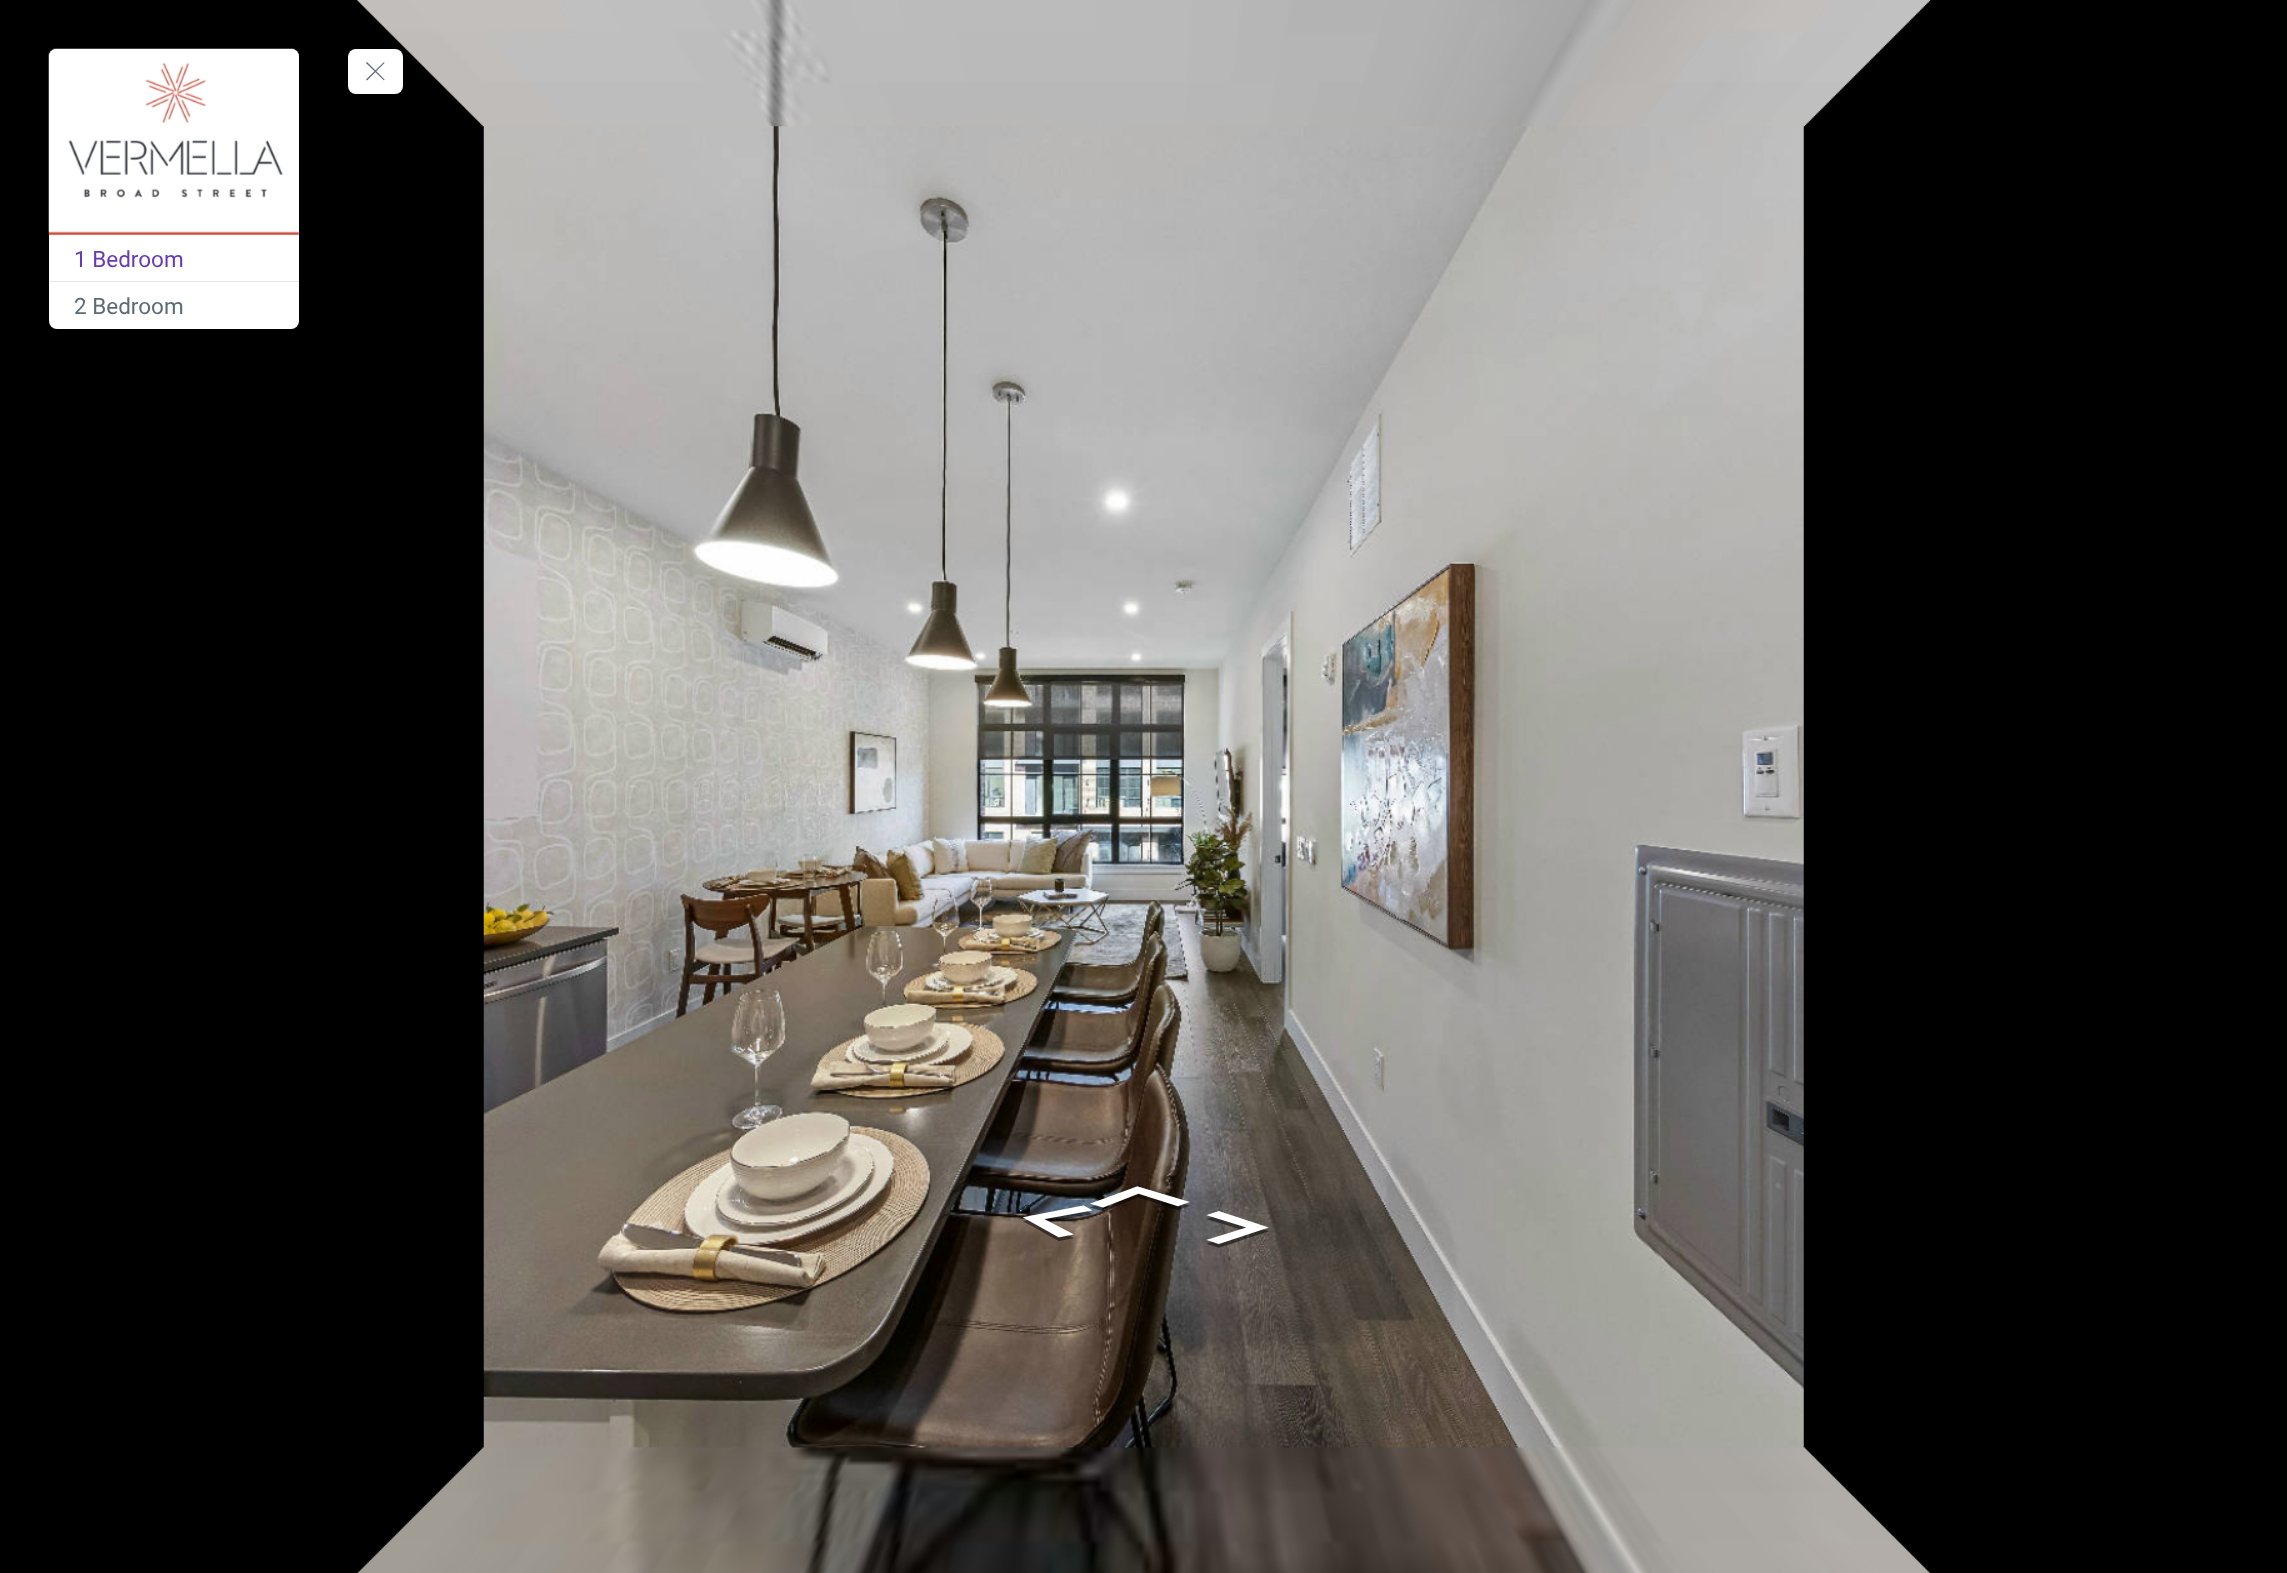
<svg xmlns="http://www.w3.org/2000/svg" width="2287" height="1573">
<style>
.a{font:22.5px Roboto;fill:#673ab7}
.b{font:22.5px Roboto;fill:#5c6b75}
</style>
<rect width="100%" height="100%" fill="#000"/>
<rect fill="#fff" x="49" y="49" width="250" height="280" rx="8"/>
<image href="1.png" x="48" y="48" width="251" height="188"/>
<image href="2.png" x="357" y="0" width="1574" height="1573"/>
<rect fill="#fff" x="348" y="49" width="55" height="45" rx="8"/>
<path fill="#5c6b75" d="M367 62l17.5 17.5l-.5 1l-18-17.5z"/>
<path fill="#5c6b75" d="M366 79.5l18-17.5l.5 1l-17.5 17.5z"/>
<path fill="#e6e6e6" d="M49 281h250v1H49z"/>
<image href="3.png" x="1022" y="1186" width="247" height="62"/>
<text class="a" x="74" y="267">1 Bedroom</text>
<text class="b" x="74" y="314">2 Bedroom</text>
</svg>
